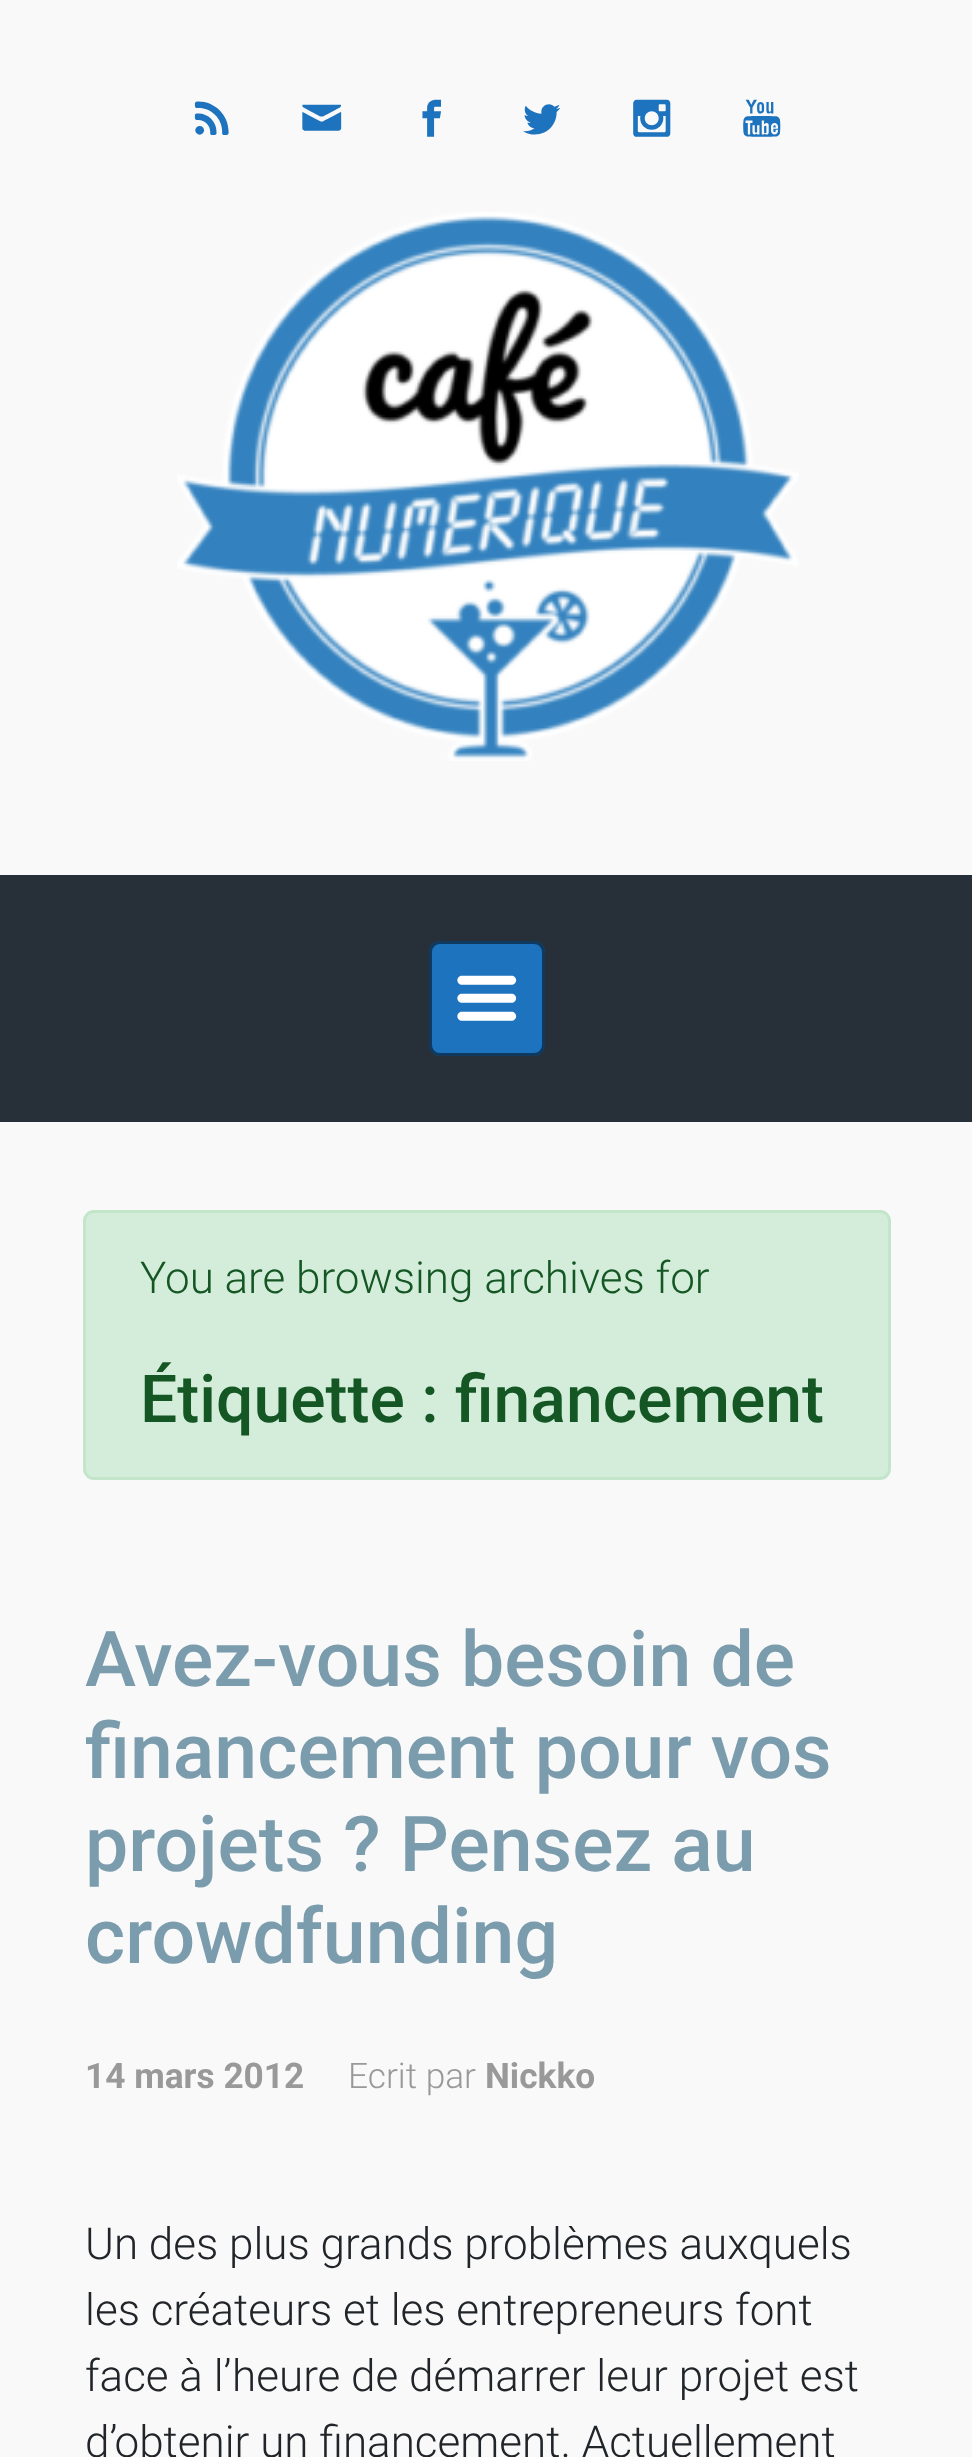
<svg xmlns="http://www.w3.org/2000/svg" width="972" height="2457">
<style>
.a{font:300 44px Roboto;fill:#155724}
.b{font:500 66px Roboto;fill:#155724}
.c{font:500 77px Roboto;fill:#7a9cad}
.d{font:bold 35.25px Roboto;fill:#999}
.e{font:300 35.25px Roboto;fill:#999}
.f{font:300 44px Roboto;fill:#212529}
</style>
<rect width="100%" height="100%" fill="#f9f9f9"/>
<image href="1.png" x="194" y="101" width="35" height="34"/>
<image href="2.png" x="302" y="104" width="40" height="27"/>
<image href="3.png" x="422" y="99" width="20" height="38"/>
<image href="4.png" x="523" y="104" width="38" height="31"/>
<image href="5.png" x="633" y="99" width="38" height="38"/>
<image href="6.png" x="743" y="99" width="38" height="38"/>
<image href="7.png" x="177" y="212" width="622" height="549"/>
<path fill="#273039" d="M0 875h972v247H0z"/>
<rect fill="#1e73be" x="429" y="941" width="116" height="115" rx="11"/>
<rect fill="none" stroke="#00000080" stroke-width="3" x="430.5" y="942.5" width="113" height="112" rx="9.5"/>
<image href="8.png" x="457" y="975" width="60" height="46"/>
<rect fill="#d4edda" stroke="#c3e6cb" stroke-width="3" x="84.5" y="1211.5" width="805" height="267" rx="9.5"/>
<text class="a" x="140" y="1293">You are browsing archives for</text>
<text class="b" x="140" y="1422">Étiquette : financement</text>
<text class="c" x="85" y="1686">Avez-vous besoin de</text>
<text class="c" x="85" y="1778">financement pour vos</text>
<text class="c" x="85" y="1871">projets ? Pensez au</text>
<text class="c" x="85" y="1963">crowdfunding</text>
<text class="d" x="85" y="2088">14 mars 2012</text>
<text class="e" x="348" y="2088">Ecrit par</text>
<text class="d" x="485" y="2088">Nickko</text>
<text class="f" x="85" y="2259">Un des plus grands problèmes auxquels</text>
<text class="f" x="85" y="2325">les créateurs et les entrepreneurs font</text>
<text class="f" x="85" y="2391">face à l’heure de démarrer leur projet est</text>
<text class="f" x="85" y="2457">d’obtenir un financement. Actuellement</text>
</svg>
